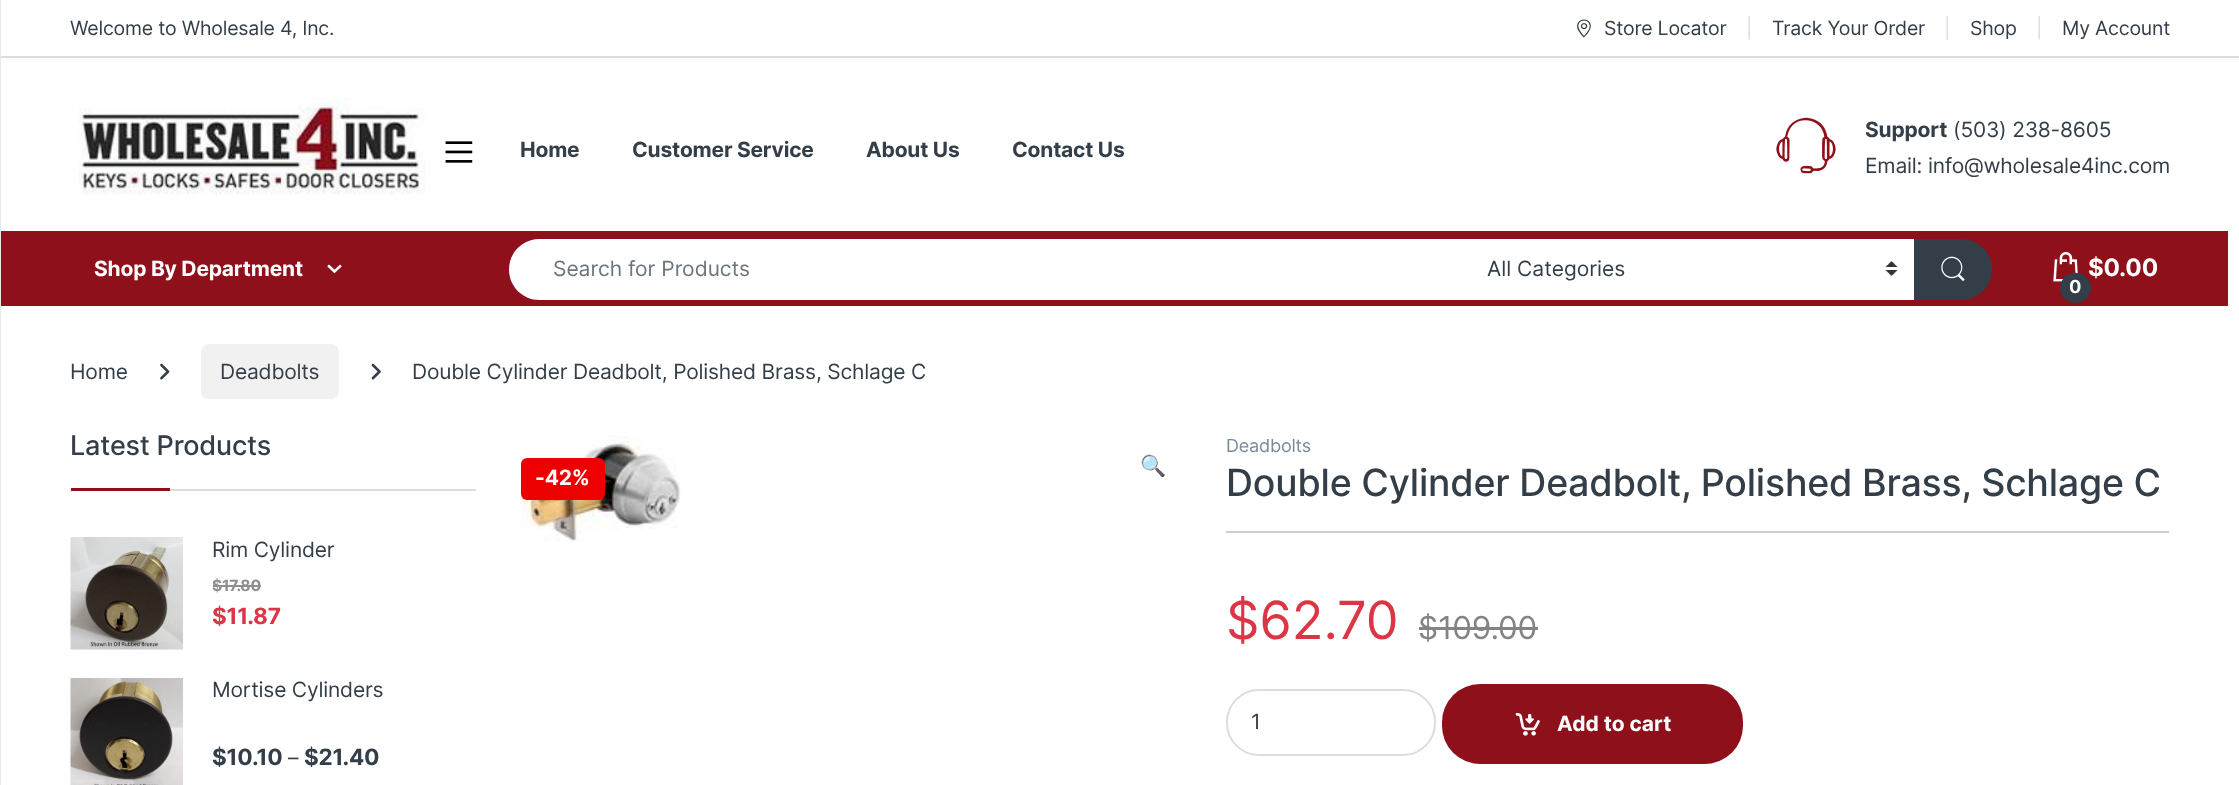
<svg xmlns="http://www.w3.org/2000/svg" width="2239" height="785">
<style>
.a{font:19.5px Inter;letter-spacing:-0.2px;fill:#333e48}
.b{font:19.5px Inter;letter-spacing:-0.2px;fill:#ddd}
.c{font:bold 21px Inter;letter-spacing:-0.2px;fill:#333e48}
.d{font:21px Inter;letter-spacing:-0.2px;fill:#333e48}
.e{font:bold 21px Inter;letter-spacing:-0.2px;fill:#fff}
.f{font:21px Inter;fill:#6c757d}
.g{font:21px Inter;fill:#333e48}
.h{font:bold 24px Inter;letter-spacing:-0.2px;fill:#fff}
.i{font:bold 18px Inter;letter-spacing:-0.2px;fill:#fff}
.j{font:500 27px Inter;letter-spacing:-0.2px;fill:#333e48}
.k{font:bold 15.5px Inter;letter-spacing:-0.2px;fill:#8f8f8f}
.l{font:bold 22.5px Inter;letter-spacing:-0.2px;fill:#dc3545}
.m{font:bold 22.5px Inter;letter-spacing:-0.2px;fill:#333e48}
.n{font:21px Noto Color Emoji;letter-spacing:-0.2px;fill:#333e48}
.o{font:18px Inter;letter-spacing:-0.2px;fill:#768b9e}
.p{font:500 37.5px Inter;letter-spacing:-0.2px;fill:#333e48}
.q{font:52.5px Inter;letter-spacing:-0.2px;fill:#dc3545}
.r{font:31.5px Inter;letter-spacing:-0.2px;fill:#848484}
.s{font:bold 21px Inter;fill:#fff}
</style>
<rect width="100%" height="100%" fill="#fff"/>
<path fill="#ddd" d="M0 56h2239v2H0z"/>
<image href="1.png" x="1577" y="19" width="14" height="19"/>
<path fill="#e3e9ef" d="M0 0h1v785H0z"/>
<image href="2.png" x="445" y="141" width="28" height="22"/>
<image href="3.png" x="78" y="97" width="348" height="98"/>
<image href="4.png" x="1776" y="117" width="60" height="57"/>
<path fill="#8e101a" d="M1 231h2227v75H1z"/>
<image href="5.png" x="327" y="264" width="15" height="10"/>
<path fill="#fff" d="M539.5 239h932.5v61h-932.5c-17 0-30.5-13.5-30.5-30.5c0-17 13.5-30.5 30.5-30.5z"/>
<path fill="#fff" d="M1472 239h442v61H1472z"/>
<image href="6.png" x="1885" y="261" width="13" height="15"/>
<path fill="#333e48" d="M1914 239h47.5c17 0 30.5 13.5 30.5 30.5c0 17-13.5 30.5-30.5 30.5h-47.5z"/>
<image href="7.png" x="1941" y="256" width="24" height="26"/>
<image href="8.png" x="2053" y="252" width="25" height="30"/>
<image href="9.png" x="160" y="363" width="10" height="17"/>
<rect fill="#f1f1f1" x="201" y="344" width="138" height="55" rx="8"/>
<image href="10.png" x="371" y="363" width="10" height="17"/>
<path fill="#ddd" d="M170 489h306v2H170z"/>
<path fill="#8e101a" d="M71 488h99v3H71z"/>
<image href="11.png" x="70" y="537" width="113" height="113"/>
<path fill="#8f8f8f" d="M213 585h48v2H213z"/>
<image href="12.png" x="70" y="678" width="113" height="107"/>
<image href="13.png" x="521" y="435" width="163" height="107"/>
<rect fill="#e00" x="521" y="458" width="84" height="42" rx="6"/>
<path fill="#cccfd1" d="M1226 531h943v2H1226z"/>
<path fill="#848484" d="M1419 627h119v3H1419z"/>
<rect fill="none" stroke="#ddd" stroke-width="2" x="1227" y="690" width="208" height="65" rx="32"/>
<rect fill="#8e101a" x="1442" y="684" width="301" height="80" rx="38"/>
<image href="14.png" x="1515" y="712" width="25" height="24"/>
<text class="a" x="70" y="35">Welcome to Wholesale 4, Inc.</text>
<text class="a" x="1604" y="35">Store Locator</text>
<text class="b" x="1746" y="35">|</text>
<text class="a" x="1772" y="35">Track Your Order</text>
<text class="b" x="1944" y="35">|</text>
<text class="a" x="1970" y="35">Shop</text>
<text class="b" x="2036" y="35">|</text>
<text class="a" x="2062" y="35">My Account</text>
<text class="c" x="520" y="157">Home</text>
<text class="c" x="632" y="157">Customer Service</text>
<text class="c" x="866" y="157">About Us</text>
<text class="c" x="1012" y="157">Contact Us</text>
<text class="c" x="1865" y="137">Support</text>
<text class="d" x="1953" y="137">(503) 238-8605</text>
<text class="d" x="1865" y="173">Email: info@wholesale4inc.com</text>
<text class="e" x="94" y="276">Shop By Department</text>
<text class="f" x="553" y="276">Search for Products</text>
<text class="g" x="1487" y="276">All Categories</text>
<text class="h" x="2088" y="276">$0.00</text>
<rect fill="#333e48" x="2060" y="273" width="31" height="30" rx="15"/>
<text class="i" x="2069" y="293">0</text>
<text class="d" x="70" y="379">Home</text>
<text class="d" x="220" y="379">Deadbolts</text>
<text class="d" x="412" y="379">Double Cylinder Deadbolt, Polished Brass, Schlage C</text>
<text class="j" x="70" y="455">Latest Products</text>
<text class="d" x="212" y="557">Rim Cylinder</text>
<text class="k" x="212" y="591">$17.80</text>
<text class="l" x="212" y="624">$11.87</text>
<text class="d" x="212" y="697">Mortise Cylinders</text>
<text class="m" x="212" y="765">$10.10</text>
<text class="d" x="288" y="765">–</text>
<text class="m" x="304" y="765">$21.40</text>
<text class="e" x="535" y="485">-42%</text>
<text class="n" x="1140" y="473">🔍</text>
<text class="o" x="1226" y="452">Deadbolts</text>
<text class="p" x="1226" y="496">Double Cylinder Deadbolt, Polished Brass, Schlage C</text>
<text class="q" x="1226" y="639">$62.70</text>
<text class="r" x="1418" y="639">$109.00</text>
<text class="g" x="1251" y="729">1</text>
<text class="s" x="1557" y="731">Add to cart</text>
</svg>
